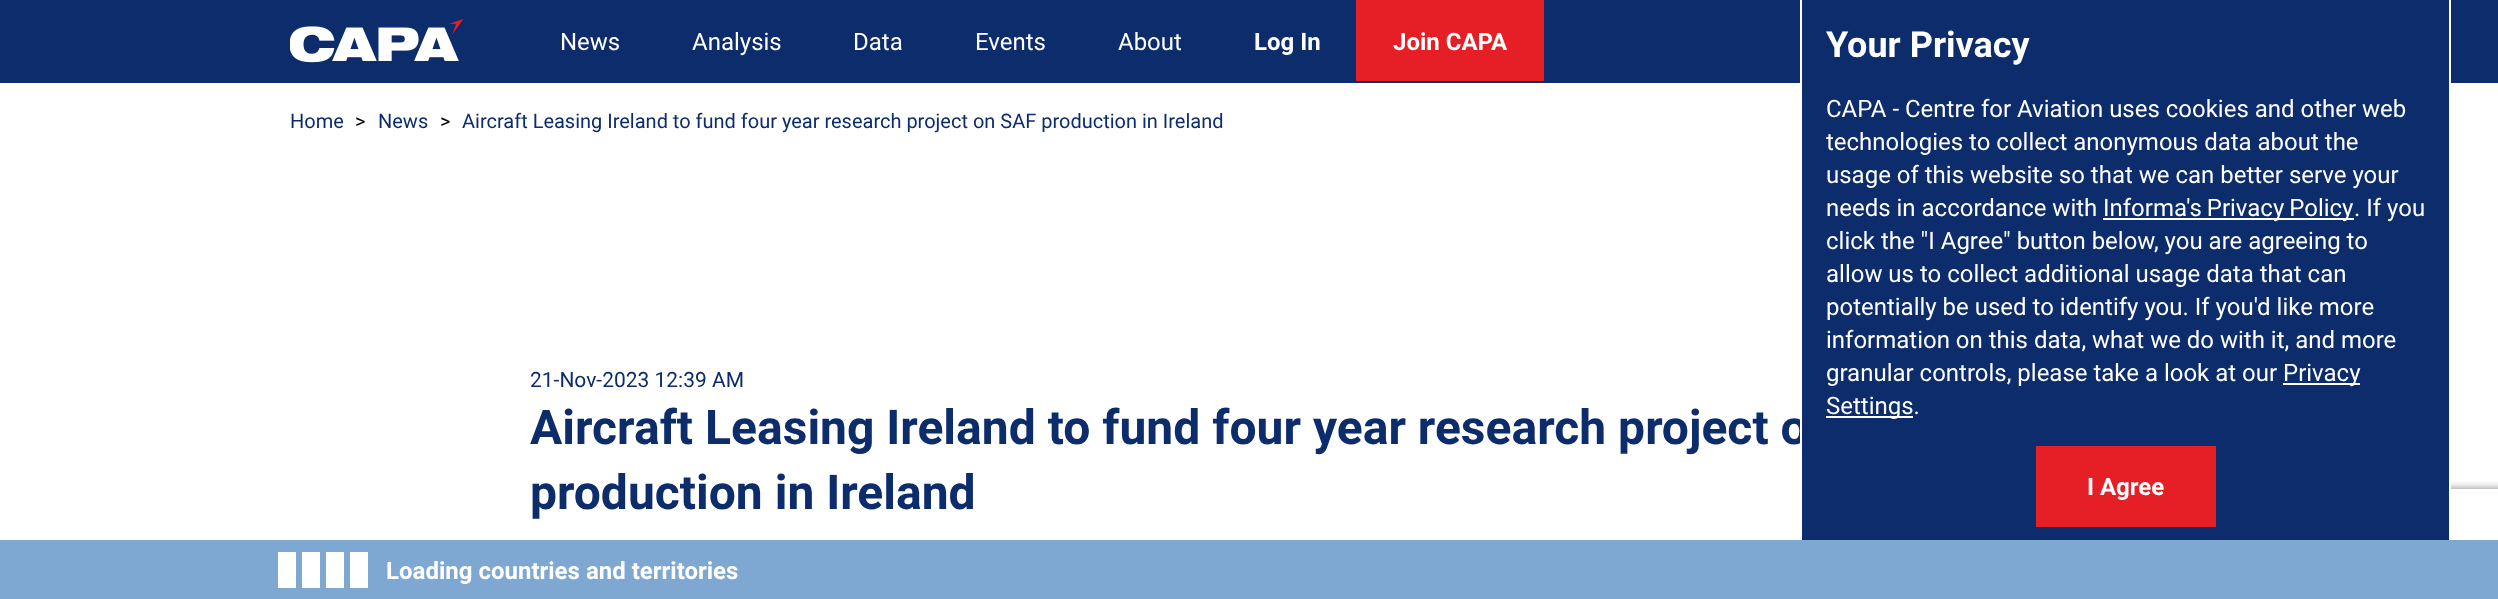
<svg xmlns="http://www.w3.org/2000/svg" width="2498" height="599">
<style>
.a{font:24px Roboto;fill:#fff}
.b{font:bold 24px Roboto;fill:#fff}
.c{font:20px Roboto;fill:#0d2c6c}
.d{font:20px Roboto;fill:#000}
.e{font:21px Roboto;fill:#0d2c6c}
.f{font:bold 48px Roboto;fill:#0d2c6c}
.g{font:bold 36px Roboto;fill:#fff}
</style>
<defs>
<clipPath id="clip1"><path d="M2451 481h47v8H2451z"/></clipPath>
</defs>
<rect width="100%" height="100%" fill="#fff"/>
<path fill="#0d2c6c" d="M0 0h2498v83H0z"/>
<image href="1.png" x="290" y="18" width="174" height="45"/>
<path fill="#e61e26" d="M1356 0h188v81H1356z"/>
<g clip-path="url(#clip1)">
<rect fill="#808080" filter="blur(4px)" x="2394" y="489" width="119" height="90" rx="3"/>
</g>
<path fill="#0d2c6c" d="M1802 83h647v457H1802z"/>
<text class="a" x="560" y="50">News</text>
<text class="a" x="692" y="50">Analysis</text>
<text class="a" x="853" y="50">Data</text>
<text class="a" x="975" y="50">Events</text>
<text class="a" x="1118" y="50">About</text>
<text class="b" x="1254" y="50">Log In</text>
<text class="b" x="1393" y="50">Join CAPA</text>
<text class="c" x="290" y="128">Home</text>
<text class="d" x="355" y="128">&gt;</text>
<text class="c" x="378" y="128">News</text>
<text class="d" x="440" y="128">&gt;</text>
<text class="c" x="462" y="128">Aircraft Leasing Ireland to fund four year research project on SAF production in Ireland</text>
<text class="e" x="530" y="387">21-Nov-2023 12:39 AM</text>
<text class="f" x="530" y="444">Aircraft Leasing Ireland to fund four year research project o</text>
<path fill="none" stroke="#fff" stroke-width="2" d="M1801 -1h649v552H1801z"/>
<path fill="#e61e26" d="M2036 446h180v81H2036z"/>
<text class="b" x="2087" y="495">I Agree</text>
<path fill="#fff" d="M1826 416h87v2H1826z"/>
<text class="a" x="1826" y="414">Settings.</text>
<path fill="#fff" d="M2283 383h77v2H2283z"/>
<text class="a" x="2283" y="381">Privacy</text>
<text class="a" x="1826" y="381">granular controls, please take a look at our</text>
<text class="a" x="1826" y="348">information on this data, what we do with it, and more</text>
<text class="a" x="1826" y="315">potentially be used to identify you. If you'd like more</text>
<text class="a" x="1826" y="282">allow us to collect additional usage data that can</text>
<text class="a" x="1826" y="249">click the "I Agree" button below, you are agreeing to</text>
<text class="a" x="2354" y="216">. If you</text>
<path fill="#fff" d="M2103 218h251v2H2103z"/>
<text class="a" x="2103" y="216" word-spacing="-1">Informa's Privacy Policy</text>
<text class="a" x="1826" y="216">needs in accordance with</text>
<text class="a" x="1826" y="183">usage of this website so that we can better serve your</text>
<text class="a" x="1826" y="150">technologies to collect anonymous data about the</text>
<text class="a" x="1826" y="117">CAPA - Centre for Aviation uses cookies and other web</text>
<text class="g" x="1826" y="57">Your Privacy</text>
<text class="f" x="530" y="509">production in Ireland</text>
<path fill="#7ea8d1" d="M0 540h2498v59H0z"/>
<path fill="#fff" d="M278 552h18v36H278z"/>
<path fill="#fff" d="M302 552h18v36H302z"/>
<path fill="#fff" d="M326 552h18v36H326z"/>
<path fill="#fff" d="M350 552h18v36H350z"/>
<text class="b" x="386" y="579">Loading countries and territories</text>
</svg>
